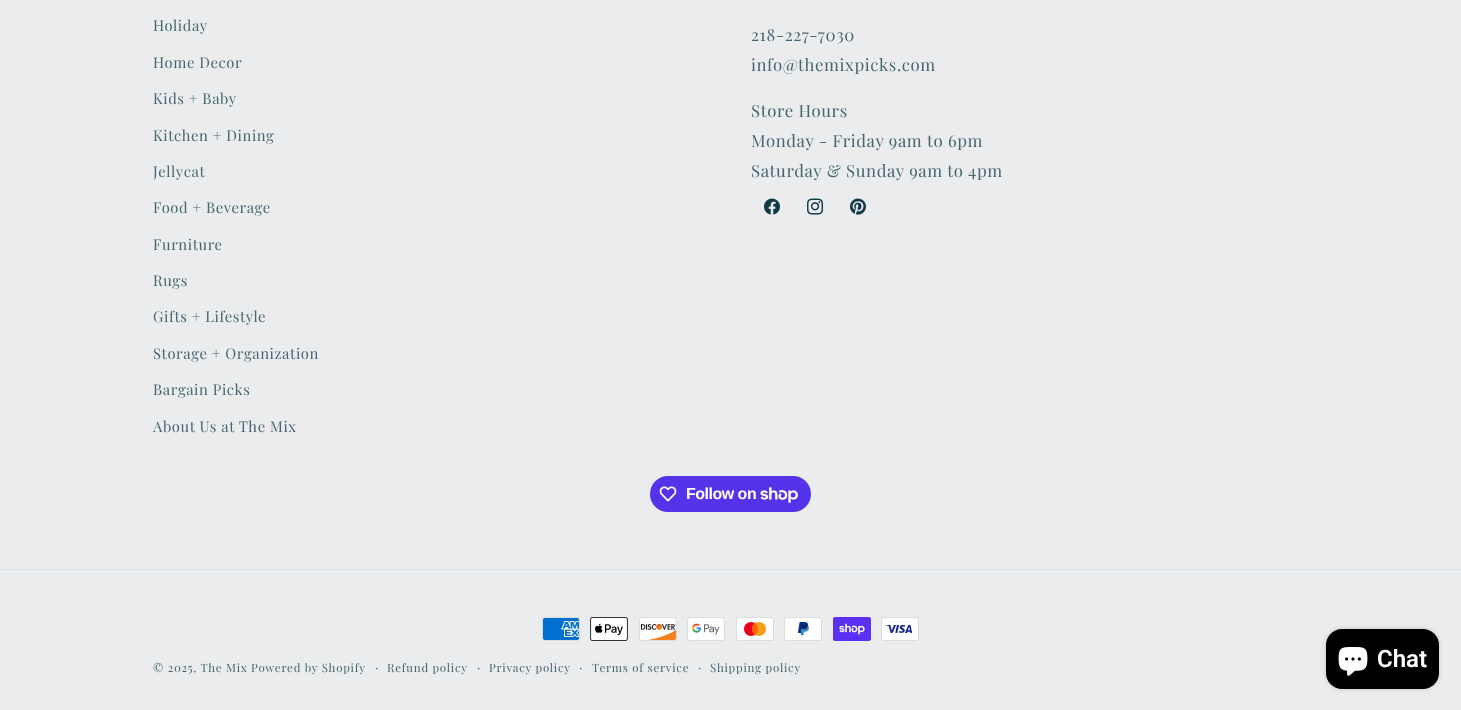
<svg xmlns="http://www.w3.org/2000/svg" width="1461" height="710">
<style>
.a{font:14.75px Playfair Display;letter-spacing:0.6px;fill:#476671}
.b{font:16.75px Playfair Display;letter-spacing:0.6px;fill:#476671}
.c{font:bold 16px Liberation Sans;letter-spacing:-0.5px;fill:#fff}
.d{font:11.5px Playfair Display;letter-spacing:0.75px;fill:#476671}
.e{font:13px Playfair Display;letter-spacing:0.75px;fill:#476671}
.f{font:600 24px Roboto;fill:#fff}
</style>
<rect width="100%" height="100%" fill="#ebeced"/>
<image href="1.png" x="764" y="198" width="16" height="17"/>
<image href="2.png" x="807" y="198" width="16" height="17"/>
<image href="3.png" x="850" y="198" width="16" height="17"/>
<rect fill="#5433eb" x="650" y="476" width="161" height="36" rx="18"/>
<image href="4.png" x="659" y="486" width="18" height="16"/>
<image href="5.png" x="760" y="487" width="38" height="16"/>
<path fill="#d9dee0" d="M0 569h1461v1H0z"/>
<image href="6.png" x="542" y="617" width="38" height="24"/>
<image href="7.png" x="590" y="617" width="38" height="24"/>
<image href="8.png" x="639" y="617" width="38" height="24"/>
<image href="9.png" x="687" y="617" width="38" height="24"/>
<image href="10.png" x="736" y="617" width="38" height="24"/>
<image href="11.png" x="784" y="617" width="38" height="24"/>
<image href="12.png" x="833" y="617" width="38" height="24"/>
<image href="13.png" x="881" y="617" width="38" height="24"/>
<rect fill="#00000026" filter="blur(2.5px)" x="1326" y="629" width="113" height="60" rx="16"/>
<rect fill="#000" x="1326" y="629" width="113" height="60" rx="16"/>
<image href="14.png" x="1338" y="647" width="30" height="29"/>
<text class="a" x="153" y="31">Holiday</text>
<text class="a" x="153" y="68">Home Decor</text>
<text class="a" x="153" y="104">Kids + Baby</text>
<text class="a" x="153" y="141">Kitchen + Dining</text>
<text class="a" x="153" y="177">Jellycat</text>
<text class="a" x="153" y="213">Food + Beverage</text>
<text class="a" x="153" y="250">Furniture</text>
<text class="a" x="153" y="286">Rugs</text>
<text class="a" x="153" y="322">Gifts + Lifestyle</text>
<text class="a" x="153" y="359">Storage + Organization</text>
<text class="a" x="153" y="395">Bargain Picks</text>
<text class="a" x="153" y="432">About Us at The Mix</text>
<text class="b" x="751" y="41">218-227-7030</text>
<text class="b" x="751" y="71">info@themixpicks.com</text>
<text class="b" x="751" y="117">Store Hours</text>
<text class="b" x="751" y="147">Monday - Friday 9am to 6pm</text>
<text class="b" x="751" y="177">Saturday &amp; Sunday 9am to 4pm</text>
<text class="c" x="686" y="499">Follow on</text>
<text class="d" x="153" y="672">© 2025, The Mix Powered by Shopify</text>
<text class="e" x="375" y="672">·</text>
<text class="d" x="387" y="672">Refund policy</text>
<text class="e" x="477" y="672">·</text>
<text class="d" x="489" y="672">Privacy policy</text>
<text class="e" x="579" y="672">·</text>
<text class="d" x="592" y="672">Terms of service</text>
<text class="e" x="698" y="672">·</text>
<text class="d" x="710" y="672">Shipping policy</text>
<text class="f" x="1377" y="667">Chat</text>
</svg>
